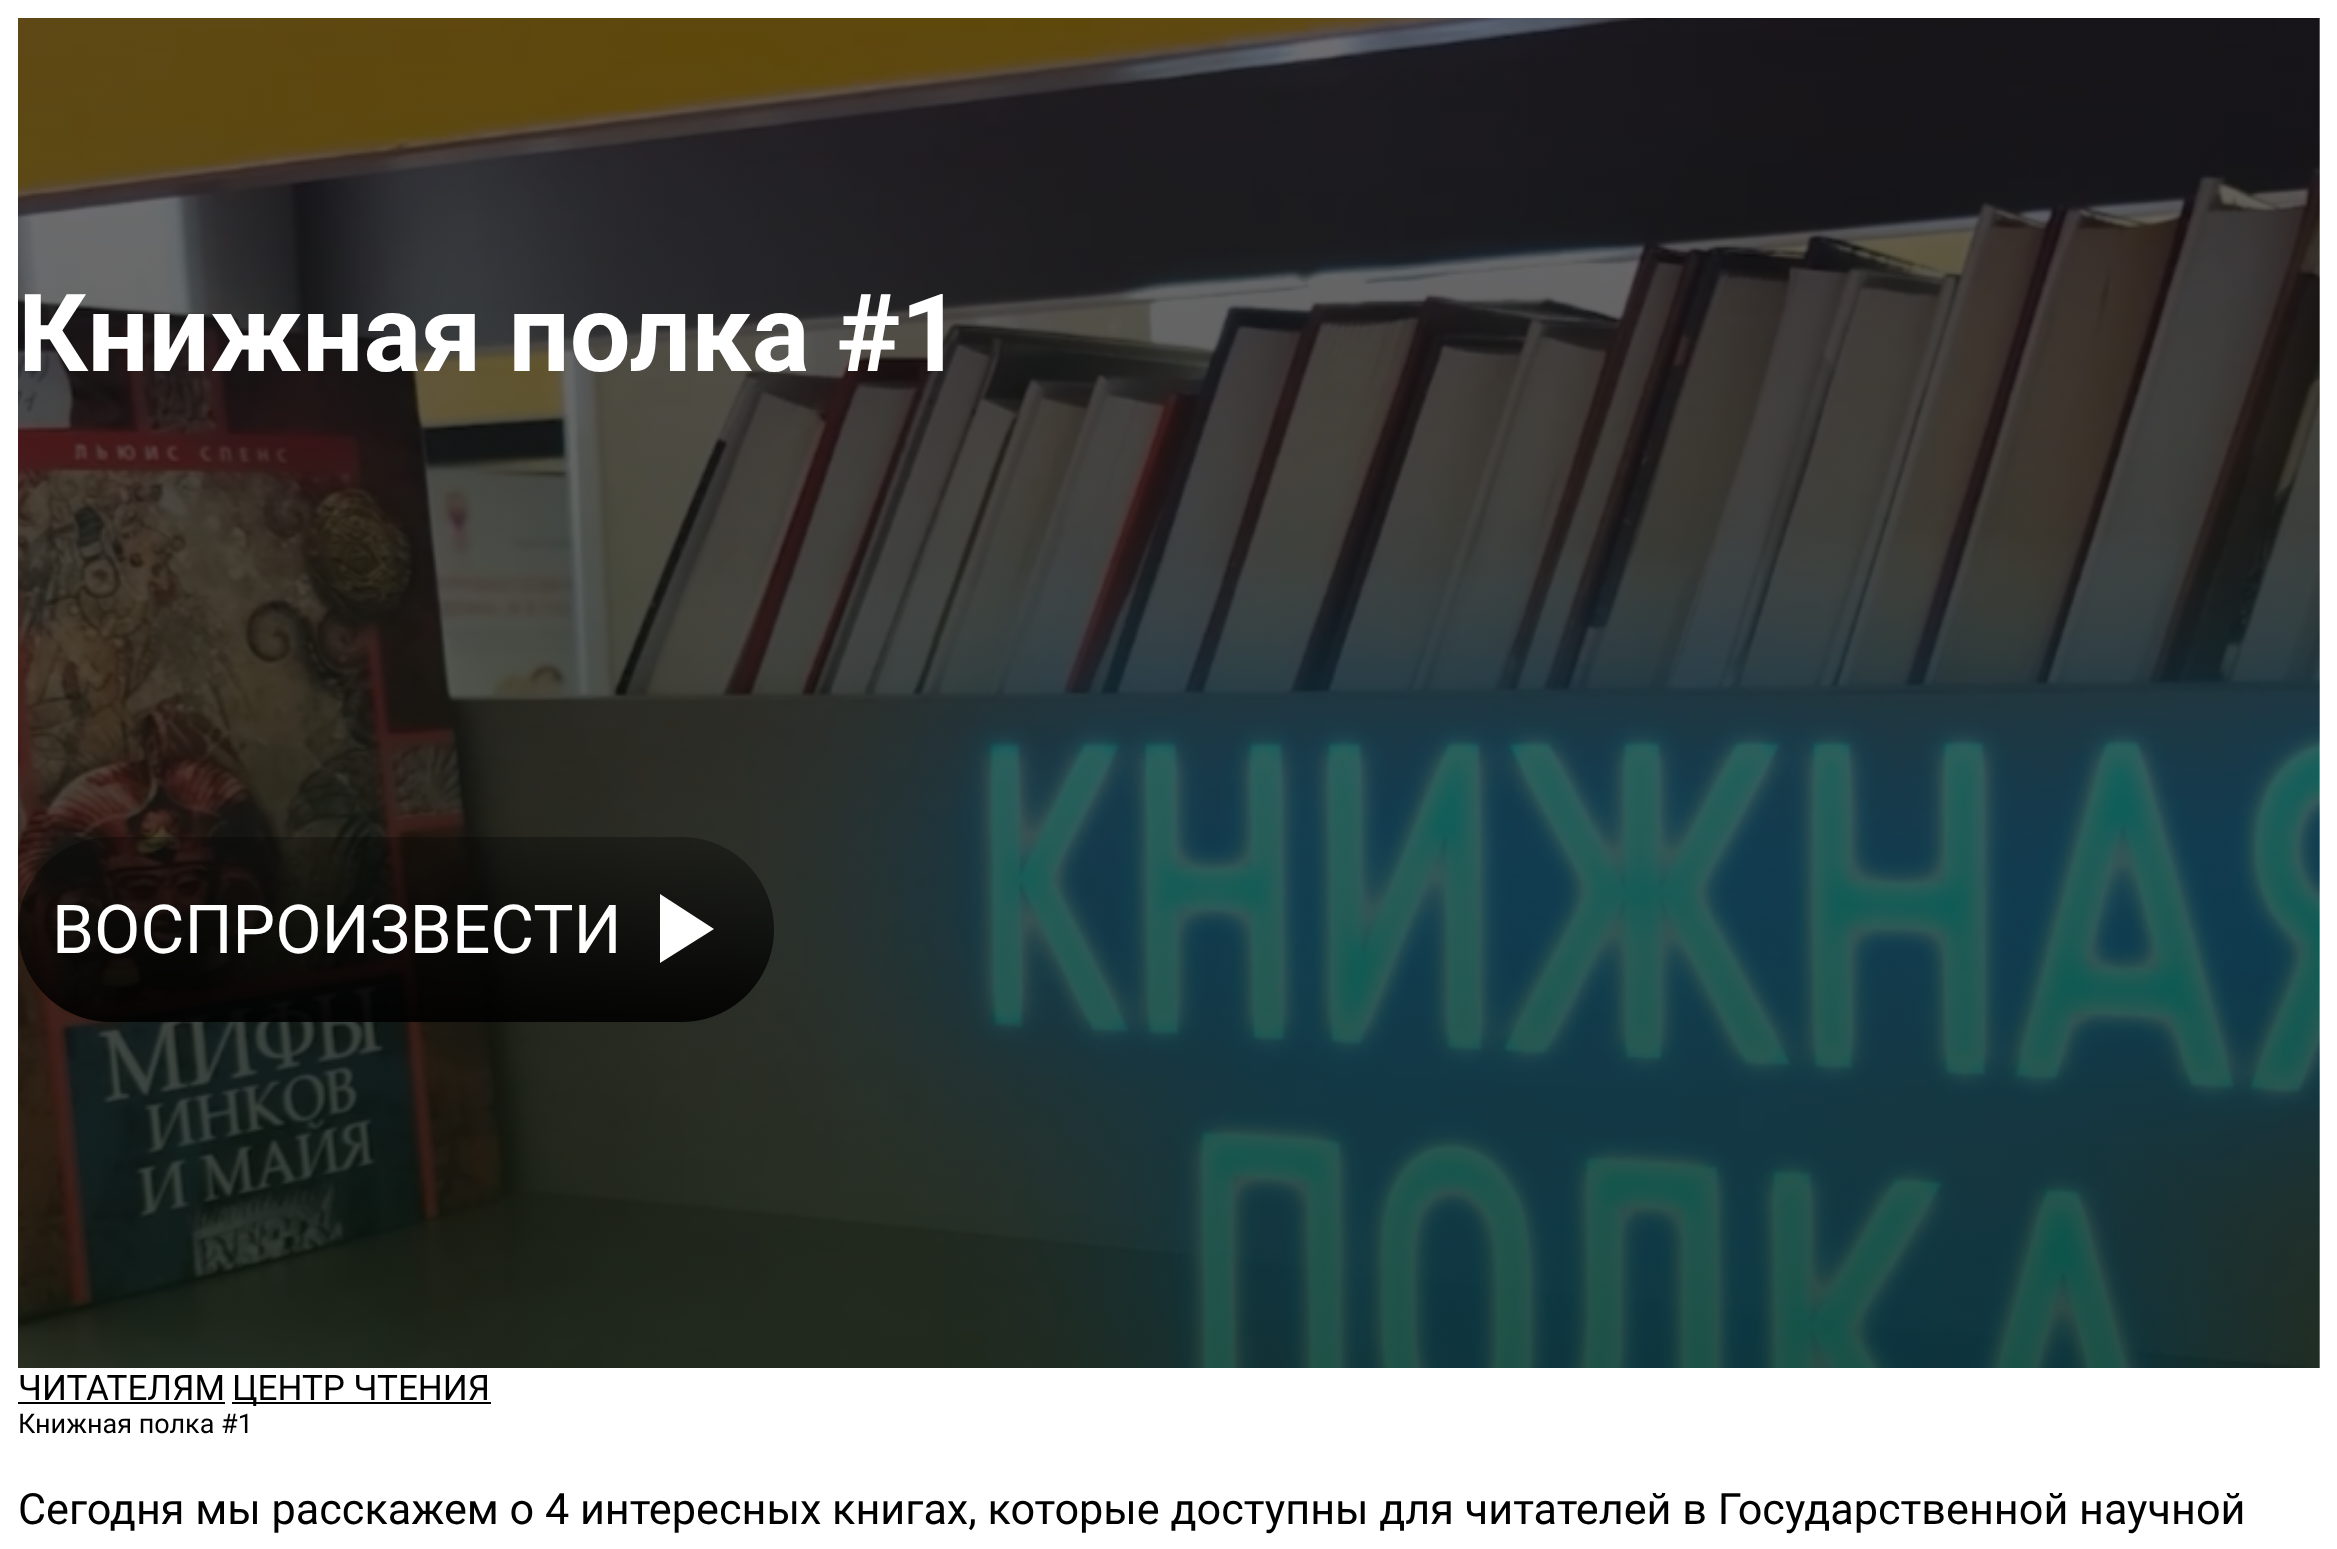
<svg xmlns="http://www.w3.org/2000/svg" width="2337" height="1549">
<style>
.a{font:bold 108px Roboto;fill:#fff}
.b{font:67.5px Roboto;fill:#fff}
.c{font:35px Roboto;fill:#000}
.d{font:27px Roboto;fill:#000}
.e{font:43.2px Roboto;fill:#000}
</style>
<rect width="100%" height="100%" fill="#fff"/>
<path fill="#f0ffff" d="M2319 18h1v1350H2319z"/>
<image href="1.png" x="18" y="18" width="2302" height="1350"/>
<path fill="#fff" d="M660 894l54 35l-54 34z"/>
<path fill="#000" d="M18 1402h207v2H18z"/>
<path fill="#000" d="M232 1402h259v2H232z"/>
<text class="a" x="18" y="371">Книжная полка #1</text>
<text class="b" x="52" y="953">ВОСПРОИЗВЕСТИ</text>
<text class="c" x="18" y="1400">ЧИТАТЕЛЯМ</text>
<text class="c" x="232" y="1400">ЦЕНТР ЧТЕНИЯ</text>
<text class="d" x="18" y="1433">Книжная полка #1</text>
<text class="e" x="18" y="1524">Сегодня мы расскажем о 4 интересных книгах, которые доступны для читателей в Государственной научной</text>
</svg>
